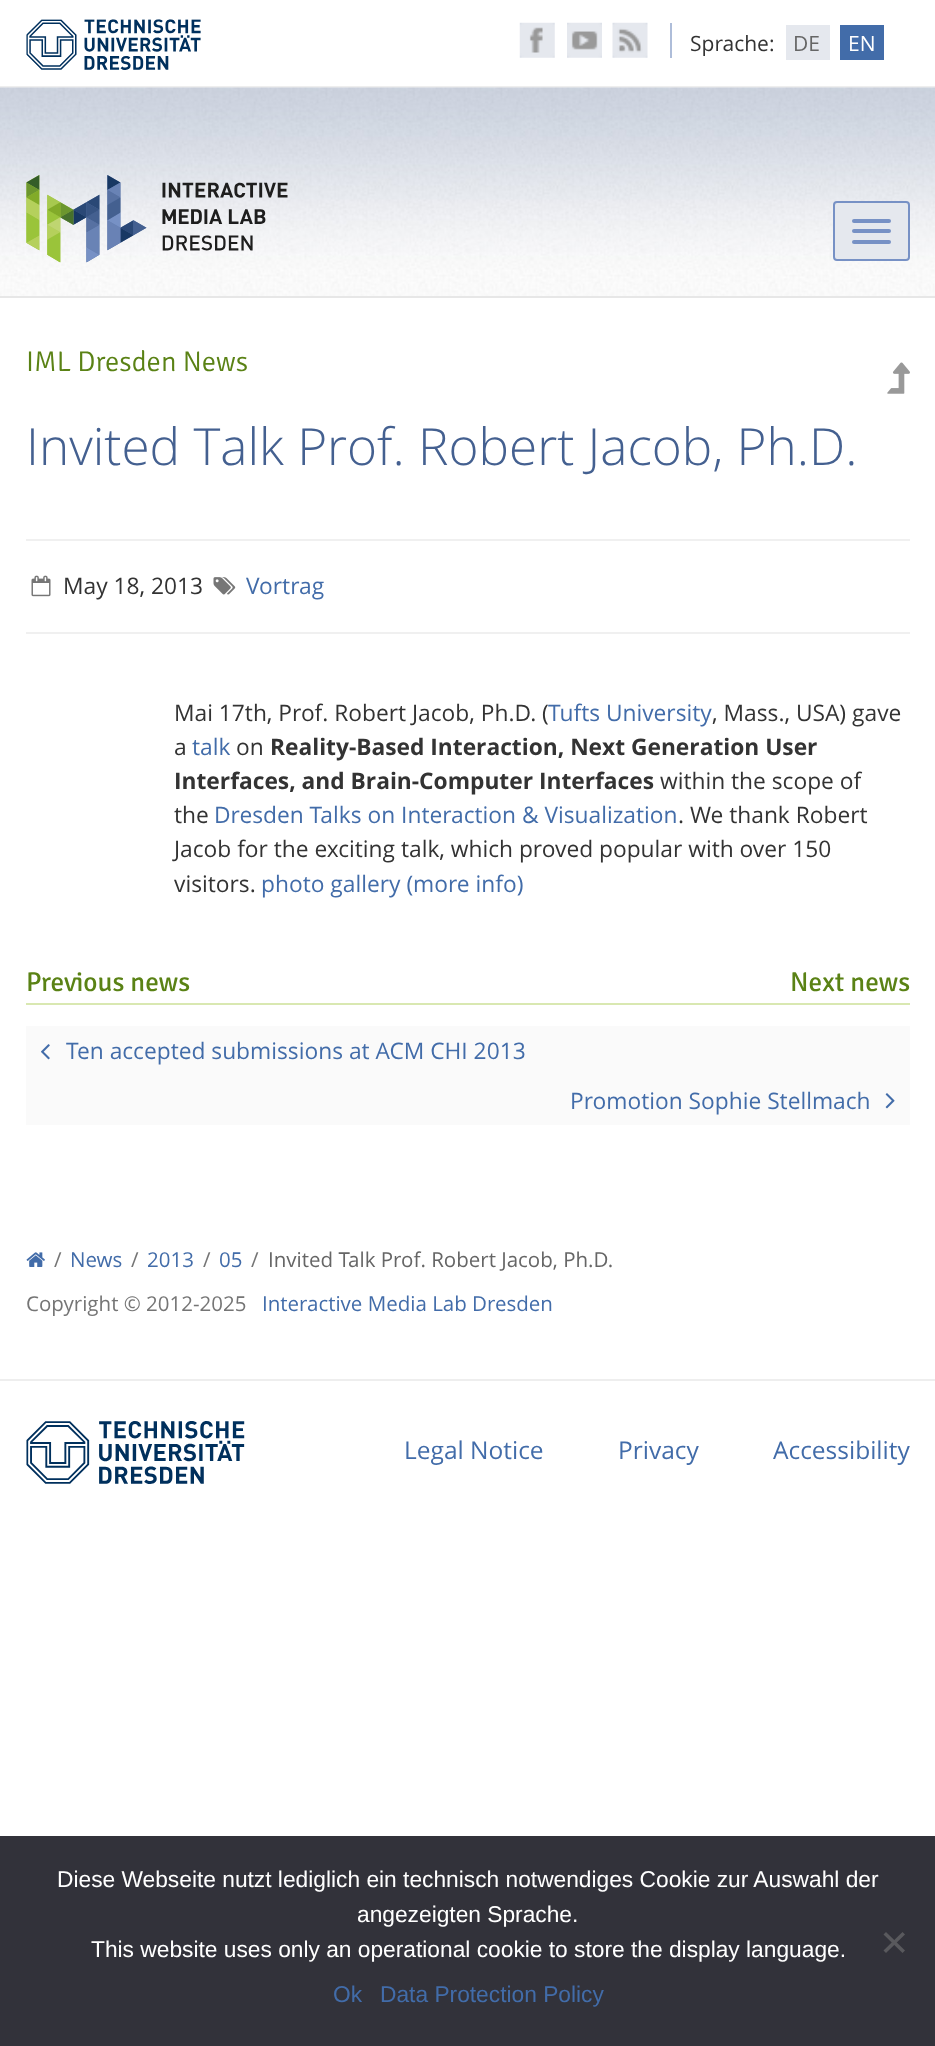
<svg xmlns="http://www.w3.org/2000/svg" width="935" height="2046">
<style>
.a{font:21px Open Sans;fill:#333}
.b{font:21px Open Sans;fill:#666}
.c{font:21px Open Sans;fill:#fff}
.d{font:300 28.5px Signika;fill:#5a8215}
.e{font:300 51.25px Open Sans;fill:#446090}
.f{font:22.75px Open Sans;fill:#333}
.g{font:22.75px Open Sans;fill:#426ca9}
.h{font:bold 22.75px Open Sans;fill:#333}
.i{font:27.25px Signika;fill:#5a8215}
.j{font:20.5px Open Sans;fill:#757575}
.k{font:20.5px Open Sans;fill:#426ca9}
.l{font:20.5px Open Sans;fill:#666}
.m{font:24.5px Open Sans;fill:#426ca9}
.n{font:22.75px Liberation Sans;fill:#fff}
.o{font:22.75px Liberation Sans;fill:#426ca9}
</style>
<rect width="100%" height="100%" fill="#fff"/>
<path fill="#eee" d="M0 86h935v2H0z"/>
<image href="1.png" x="26" y="19" width="175" height="51"/>
<path fill="#aebdd9" d="M670 23h2v35H670z"/>
<image href="2.png" x="519" y="22" width="36" height="36"/>
<image href="3.png" x="567" y="22" width="35" height="36"/>
<image href="4.png" x="612" y="22" width="36" height="36"/>
<path fill="#e5e8ee" d="M786 25h44v35H786z"/>
<path fill="#426ca9" d="M840 25h44v35H840z"/>
<image href="5.png" x="0" y="87" width="935" height="209"/>
<path fill="#e7e7e7" d="M0 296h935v2H0z"/>
<image href="6.png" x="26" y="175" width="262" height="88"/>
<rect fill="#e5e8ee" stroke="#7791c5" stroke-width="2" x="834" y="202" width="75" height="58" rx="3"/>
<rect fill="#7791c5" x="852" y="219" width="39" height="4" rx="2"/>
<rect fill="#7791c5" x="852" y="229" width="39" height="4" rx="2"/>
<rect fill="#7791c5" x="852" y="240" width="39" height="4" rx="2"/>
<image href="7.png" x="887" y="362" width="23" height="32"/>
<path fill="#f0f0f0" d="M26 539h884v2H26z"/>
<path fill="#f0f0f0" d="M26 632h884v2H26z"/>
<image href="8.png" x="31" y="575" width="20" height="22"/>
<image href="9.png" x="213" y="577" width="23" height="18"/>
<path fill="#d9e8b1" d="M26 1003h884v2H26z"/>
<path fill="#fafafa" d="M26 1026h884v99H26z"/>
<image href="10.png" x="41" y="1044" width="9" height="16"/>
<image href="11.png" x="885" y="1093" width="10" height="16"/>
<image href="12.png" x="26" y="1252" width="19" height="15"/>
<path fill="#eee" d="M0 1379h935v2H0z"/>
<image href="13.png" x="26" y="1421" width="219" height="63"/>
<path fill="#32323a" d="M0 1836h935v210H0z"/>
<path fill="#59595d" d="M902.5 1932l2.5 2.5l-19 18.5l-2.5-2.5z"/>
<path fill="#59595d" d="M883.5 1934.5l2.5-2.5l19 18.5l-2.5 2.5z"/>
<text class="a" x="690" y="51">Sprache:</text>
<text class="b" x="793" y="51">DE</text>
<text class="c" x="848" y="51">EN</text>
<text class="d" x="26" y="371">IML Dresden News</text>
<text class="e" x="26" y="465">Invited Talk Prof. Robert Jacob, Ph.D.</text>
<text class="f" x="63" y="594">May 18, 2013</text>
<text class="g" x="246" y="594">Vortrag</text>
<text class="f" x="174" y="721">Mai 17th, Prof. Robert Jacob, Ph.D. (</text>
<text class="g" x="548" y="721">Tufts University</text>
<text class="f" x="712" y="721">, Mass., USA) gave</text>
<text class="f" x="174" y="755">a</text>
<text class="g" x="192" y="755">talk</text>
<text class="f" x="236" y="755">on</text>
<text class="h" x="270" y="755">Reality-Based Interaction, Next Generation User</text>
<text class="h" x="174" y="789">Interfaces, and Brain-Computer Interfaces</text>
<text class="f" x="660" y="789">within the scope of</text>
<text class="f" x="174" y="823">the</text>
<text class="g" x="214" y="823">Dresden Talks on Interaction &amp; Visualization</text>
<text class="f" x="678" y="823">. We thank Robert</text>
<text class="f" x="174" y="857">Jacob for the exciting talk, which proved popular with over 150</text>
<text class="f" x="174" y="892">visitors.</text>
<text class="g" x="261" y="892">photo gallery (more info)</text>
<text class="i" x="26" y="991">Previous news</text>
<text class="i" x="790" y="991">Next news</text>
<text class="g" x="66" y="1059">Ten accepted submissions at ACM CHI 2013</text>
<text class="g" x="570" y="1109">Promotion Sophie Stellmach</text>
<text class="j" x="54" y="1267">/</text>
<text class="k" x="70" y="1267">News</text>
<text class="j" x="131" y="1267">/</text>
<text class="k" x="147" y="1267">2013</text>
<text class="j" x="203" y="1267">/</text>
<text class="k" x="219" y="1267">05</text>
<text class="j" x="251" y="1267">/</text>
<text class="l" x="268" y="1267">Invited Talk Prof. Robert Jacob, Ph.D.</text>
<text class="j" x="26" y="1311">Copyright © 2012-2025</text>
<text class="k" x="262" y="1311">Interactive Media Lab Dresden</text>
<text class="m" x="404" y="1459">Legal Notice</text>
<text class="m" x="618" y="1459">Privacy</text>
<text class="m" x="773" y="1459">Accessibility</text>
<text class="n" x="57" y="1887">Diese Webseite nutzt lediglich ein technisch notwendiges Cookie zur Auswahl der</text>
<text class="n" x="357" y="1922">angezeigten Sprache.</text>
<text class="n" x="91" y="1957">This website uses only an operational cookie to store the display language.</text>
<text class="o" x="333" y="2002">Ok</text>
<text class="o" x="380" y="2002">Data Protection Policy</text>
</svg>
